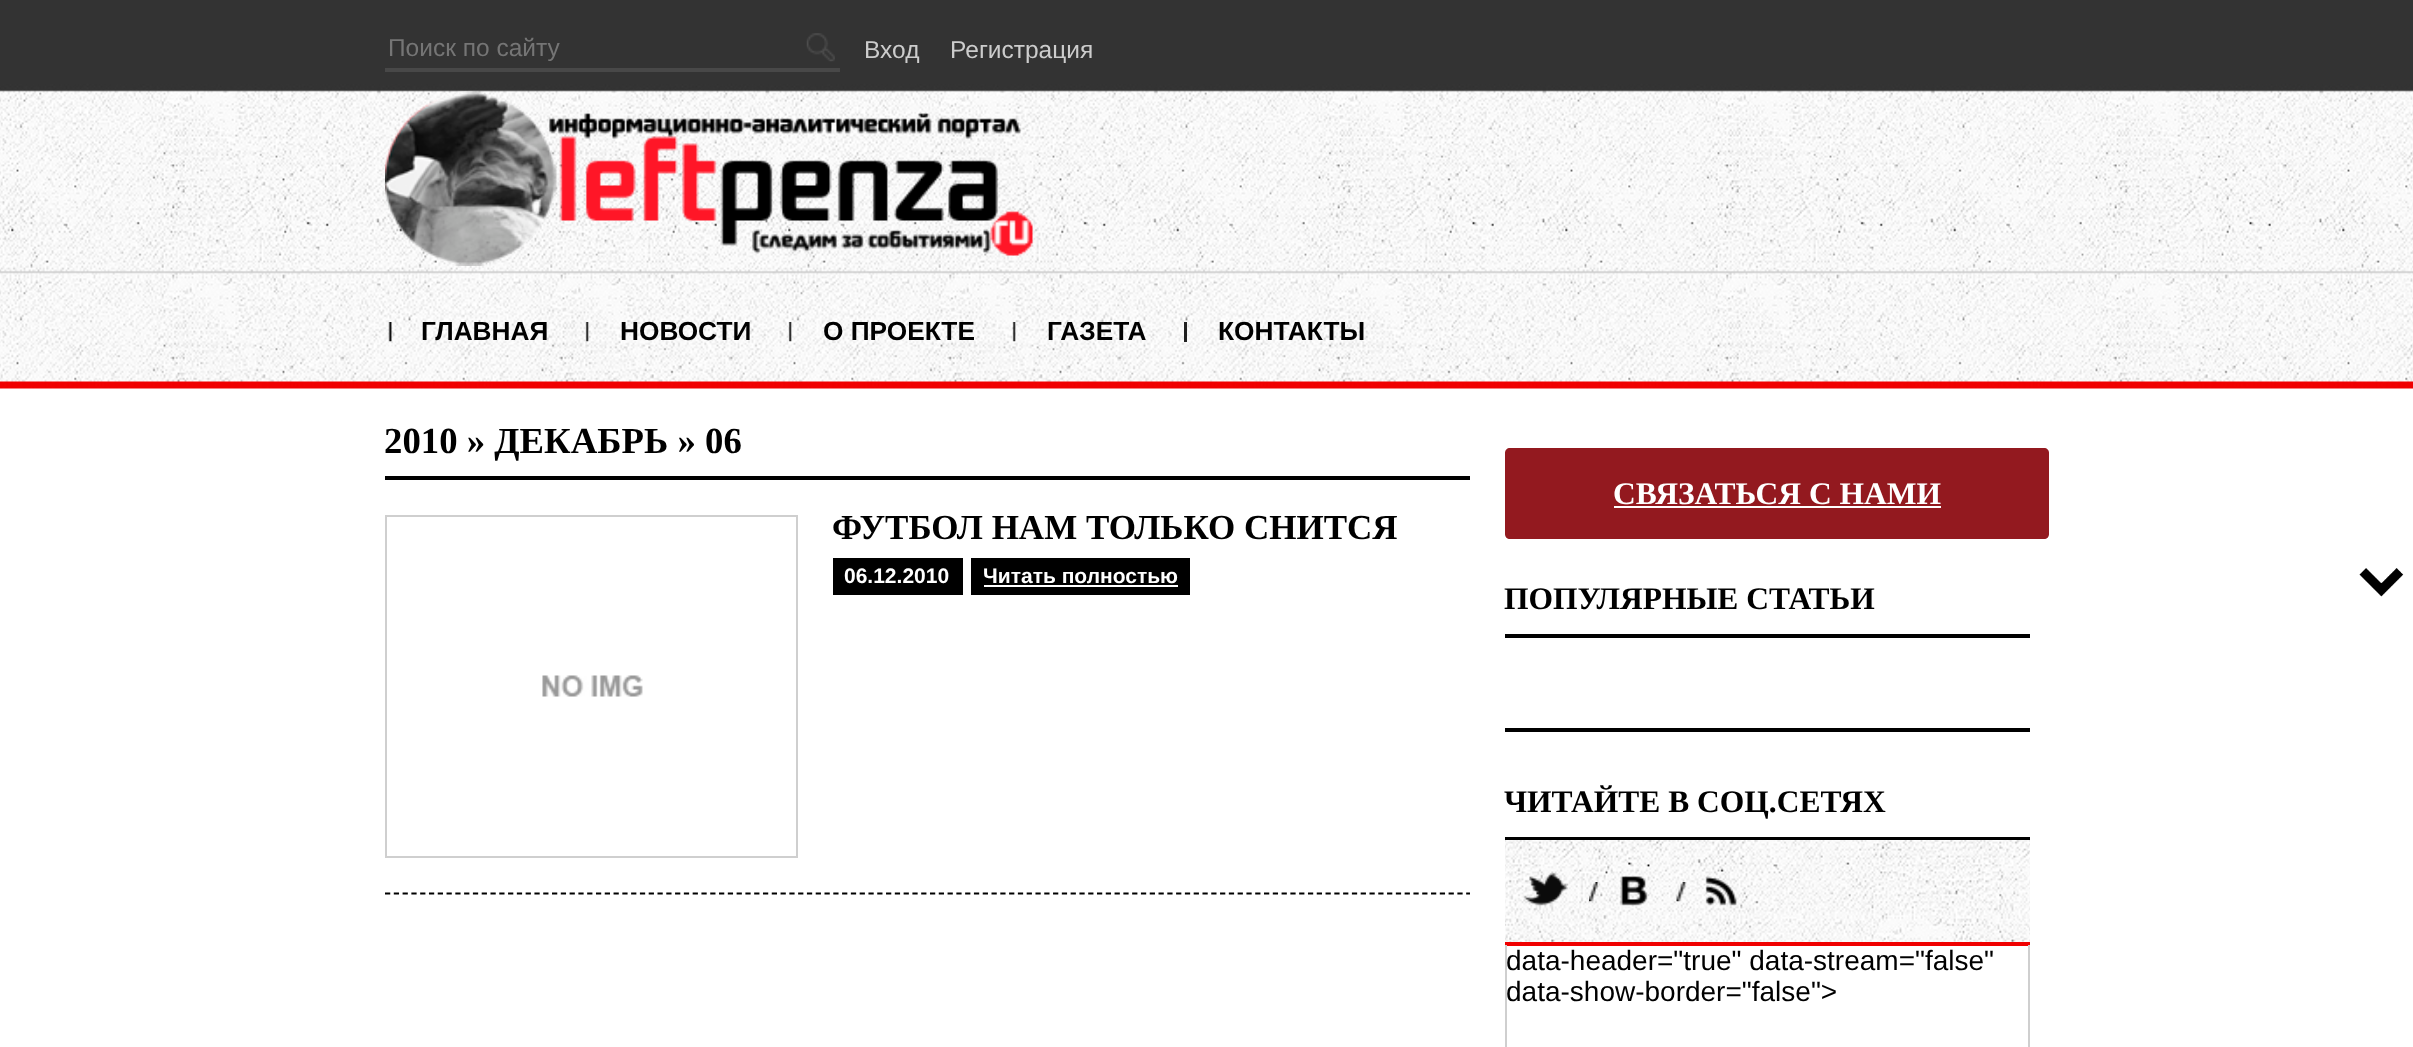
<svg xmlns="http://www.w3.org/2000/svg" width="2413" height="1047">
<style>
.a{font:24.5px Liberation Sans;fill:#757575}
.b{font:24.5px Liberation Sans;fill:#ccc}
.c{font:bold 26.25px Liberation Sans;fill:#000}
.d{font:bold 36.75px Liberation Serif;fill:#000}
.e{font:bold 35px Liberation Serif;fill:#000}
.f{font:bold 21px Liberation Sans;fill:#fff}
.g{font:bold 31.5px Liberation Serif;fill:#fff}
.h{font:bold 31.5px Liberation Serif;fill:#000}
.i{font:28px Liberation Sans;fill:#000}
</style>
<rect width="100%" height="100%" fill="#fff"/>
<image href="1.png" x="0" y="0" width="2413" height="389"/>
<path fill="#484848" d="M385 68h455v4H385z"/>
<image href="2.png" x="806" y="33" width="29" height="29"/>
<image href="3.png" x="385" y="91" width="648" height="175"/>
<image href="4.png" x="388" y="322" width="4" height="20"/>
<image href="5.png" x="585" y="322" width="4" height="20"/>
<image href="6.png" x="788" y="322" width="4" height="20"/>
<image href="7.png" x="1012" y="322" width="4" height="20"/>
<path fill="#000000de" d="M1184 322h3v20H1184z"/>
<path fill="#000" d="M385 476h1085v4H385z"/>
<path fill="none" stroke="#000" stroke-width="1.8" stroke-dasharray="5.25 3.54" d="M385 893.5h1085"/>
<path fill="none" stroke="#cfcfcf" stroke-width="2" d="M386 516h411v341H386z"/>
<image href="8.png" x="542" y="675" width="101" height="22"/>
<path fill="#000" d="M833 558h130v37H833z"/>
<path fill="#000" d="M971 558h219v37H971z"/>
<path fill="#fff" d="M984 585h194v2H984z"/>
<path fill="#93191f" d="M1510 448h431v91h-431c-3 0-5-2-5-5v-81c0-3 2-5 5-5z"/>
<path fill="#93191f" d="M1941 448h103c3 0 5 2 5 5v81c0 3-2 5-5 5h-103z"/>
<path fill="#fff" d="M1614 506h327v2H1614z"/>
<path fill="#000" d="M1505 634h525v4H1505z"/>
<path fill="#000" d="M1505 728h525v4H1505z"/>
<path fill="#000" d="M1505 837h525v3H1505z"/>
<image href="9.png" x="1505" y="840" width="525" height="102"/>
<path fill="#f00000" d="M1505 942h525v4H1505z"/>
<image href="10.png" x="1523" y="872" width="45" height="34"/>
<image href="11.png" x="1589" y="882" width="11" height="20"/>
<image href="12.png" x="1620" y="876" width="28" height="30"/>
<image href="13.png" x="1676" y="882" width="11" height="20"/>
<image href="14.png" x="1705" y="876" width="32" height="30"/>
<path fill="#cfcfcf" d="M2028 945h2v102H2028z"/>
<path fill="#cfcfcf" d="M1505 945h2v102H1505z"/>
<image href="15.png" x="2359" y="568" width="45" height="29"/>
<text class="a" x="388" y="56">Поиск по сайту</text>
<text class="b" x="864" y="58">Вход</text>
<text class="b" x="950" y="58">Регистрация</text>
<text class="c" x="421" y="340">ГЛАВНАЯ</text>
<text class="c" x="620" y="340">НОВОСТИ</text>
<text class="c" x="823" y="340">О ПРОЕКТЕ</text>
<text class="c" x="1047" y="340">ГАЗЕТА</text>
<text class="c" x="1218" y="340">КОНТАКТЫ</text>
<text class="d" x="384" y="453">2010 » ДЕКАБРЬ » 06</text>
<text class="e" x="832" y="539">ФУТБОЛ НАМ ТОЛЬКО СНИТСЯ</text>
<text class="f" x="844" y="583">06.12.2010</text>
<text class="f" x="983" y="583">Читать полностью</text>
<text class="g" x="1613" y="504">СВЯЗАТЬСЯ С НАМИ</text>
<text class="h" x="1504" y="609">ПОПУЛЯРНЫЕ СТАТЬИ</text>
<text class="h" x="1504" y="812">ЧИТАЙТЕ В СОЦ.СЕТЯХ</text>
<text class="i" x="1506" y="970">data-header="true" data-stream="false"</text>
<text class="i" x="1506" y="1001">data-show-border="false"&gt;</text>
</svg>
